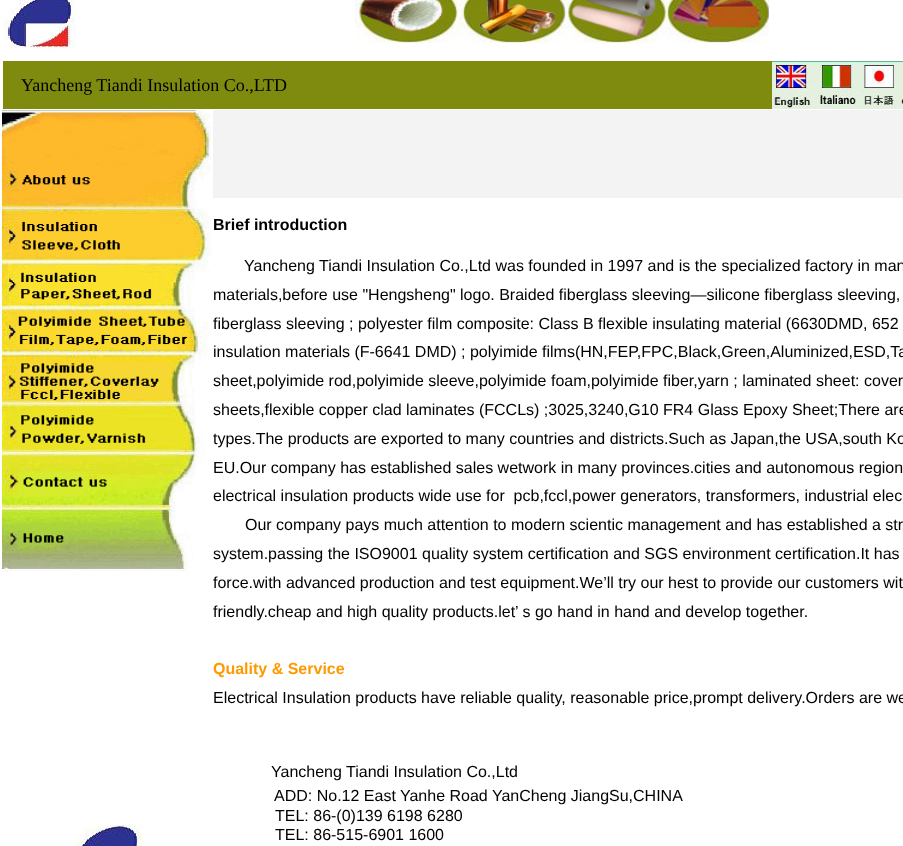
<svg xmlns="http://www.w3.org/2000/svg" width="903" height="846">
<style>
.a{font:18px Liberation Serif;fill:#000}
.b{font:bold 16px Liberation Sans;fill:#000}
.c{font:16px Liberation Sans;fill:#000}
.d{font:bold 16px Liberation Sans;fill:#f90}
</style>
<rect width="100%" height="100%" fill="#fff"/>
<image href="1.png" x="3" y="0" width="73" height="51"/>
<image href="2.png" x="355" y="0" width="414" height="43"/>
<path fill="#7e8b0e" d="M3 61h769v48H3z"/>
<image href="3.png" x="772" y="61" width="131" height="48"/>
<image href="4.png" x="2" y="110" width="209" height="462"/>
<image href="5.png" x="75" y="825" width="67" height="21"/>
<path fill="#f3f3f3" d="M213 110h690v88H213z"/>
<text class="a" x="21" y="91">Yancheng Tiandi Insulation Co.,LTD</text>
<text class="b" x="213" y="230">Brief introduction</text>
<text class="c" x="244" y="271">Yancheng Tiandi Insulation Co.,Ltd was founded in 1997 and is the specialized factory in man</text>
<text class="c" x="213" y="300">materials,before use "Hengsheng" logo. Braided fiberglass sleeving—silicone fiberglass sleeving,</text>
<text class="c" x="213" y="329">fiberglass sleeving ; polyester film composite: Class B flexible insulating material (6630DMD, 652</text>
<text class="c" x="213" y="357">insulation materials (F-6641 DMD) ; polyimide films(HN,FEP,FPC,Black,Green,Aluminized,ESD,Ta</text>
<text class="c" x="213" y="386">sheet,polyimide rod,polyimide sleeve,polyimide foam,polyimide fiber,yarn ; laminated sheet: cover</text>
<text class="c" x="213" y="415">sheets,flexible copper clad laminates (FCCLs) ;3025,3240,G10 FR4 Glass Epoxy Sheet;There are</text>
<text class="c" x="213" y="444">types.The products are exported to many countries and districts.Such as Japan,the USA,south Ko</text>
<text class="c" x="213" y="473">EU.Our company has established sales wetwork in many provinces.cities and autonomous region</text>
<text class="c" xml:space="preserve" x="213" y="501">electrical insulation products wide use for  pcb,fccl,power generators, transformers, industrial elec</text>
<text class="c" x="245" y="530">Our company pays much attention to modern scientic management and has established a str</text>
<text class="c" x="213" y="559">system.passing the ISO9001 quality system certification and SGS environment certification.It has</text>
<text class="c" x="213" y="588">force.with advanced production and test equipment.We’ll try our hest to provide our customers wit</text>
<text class="c" x="213" y="617">friendly.cheap and high quality products.let’ s go hand in hand and develop together.</text>
<text class="d" x="213" y="674">Quality &amp; Service</text>
<text class="c" x="213" y="703">Electrical Insulation products have reliable quality, reasonable price,prompt delivery.Orders are we</text>
<text class="c" x="271" y="777">Yancheng Tiandi Insulation Co.,Ltd</text>
<text class="c" x="274" y="801">ADD: No.12 East Yanhe Road YanCheng JiangSu,CHINA</text>
<text class="c" x="275" y="821">TEL: 86-(0)139 6198 6280</text>
<text class="c" x="275" y="840">TEL: 86-515-6901 1600</text>
</svg>
